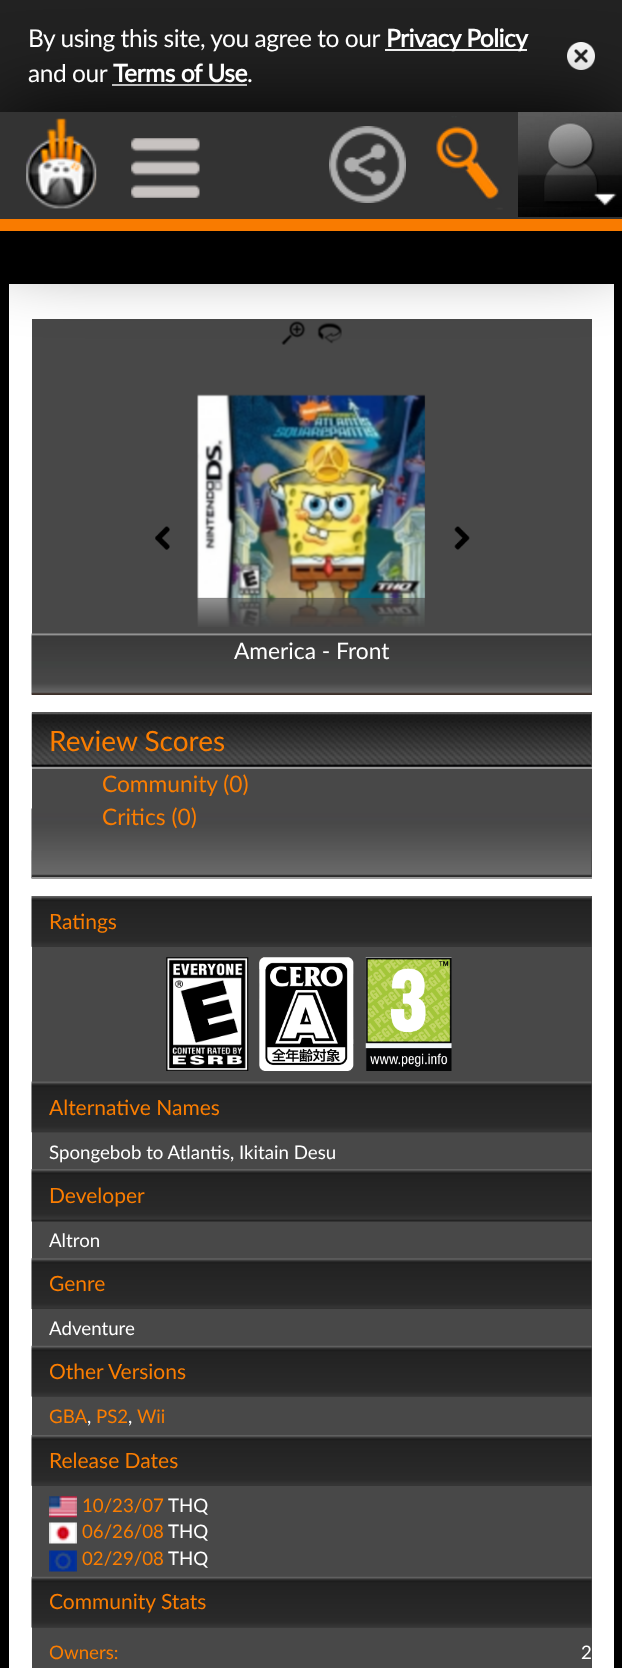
<svg xmlns="http://www.w3.org/2000/svg" width="622" height="1668">
<style>
.a{font:24.5px Lato;letter-spacing:-0.45px;fill:#fff}
.b{font:bold 24.5px Lato;letter-spacing:-0.45px;fill:#fff}
.c{font:22.75px Lato;fill:#fff}
.d{font:28px Lato;fill:#fa7d01}
.e{font:22.75px Lato;fill:#fa7d01}
.f{font:21px Lato;fill:#fa7d01}
.g{font:18.7px Lato;fill:#fff}
.h{font:18.7px Lato;fill:#fa7d01}
</style>
<rect width="100%" height="100%" fill="#000"/>
<path fill="#222" d="M0 0h622v112H0z"/>
<path fill="#fff" d="M385 49h142v2H385z"/>
<image href="7.png" x="567" y="42" width="28" height="28"/>
<path fill="#fff" d="M112 84h135v2H112z"/>
<path fill="#fff" d="M9 284h605v1384H9z"/>
<path fill="#484848" d="M32 319h560v376H32z"/>
<image href="11.png" x="281" y="321" width="25" height="24"/>
<image href="12.png" x="317" y="322" width="25" height="22"/>
<path fill="#000" filter="blur(44px)" d="M0 114h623v119H0z"/>
<path fill="#333" d="M0 112h622v107H0z"/>
<image href="1.png" x="26" y="118" width="71" height="91"/>
<image href="2.png" x="131" y="138" width="69" height="60"/>
<image href="3.png" x="329" y="126" width="77" height="77"/>
<image href="4.png" x="436" y="116" width="67" height="94"/>
<image href="5.png" x="518" y="112" width="104" height="105"/>
<image href="6.png" x="518" y="174" width="104" height="33"/>
<path fill="#f97b00" d="M0 219h622v12H0z"/>
<image href="8.png" x="31" y="633" width="561" height="62"/>
<image href="9.png" x="155" y="526" width="15" height="24"/>
<image href="10.png" x="454" y="526" width="16" height="24"/>
<image href="13.png" x="197" y="394" width="229" height="205"/>
<image href="14.png" x="197" y="598" width="228" height="29"/>
<path fill="#484848" d="M32 712h560v139H32z"/>
<image href="15.png" x="31" y="808" width="561" height="71"/>
<image href="16.png" x="31" y="712" width="561" height="55"/>
<path fill="#999" d="M32 767h560v2H32z"/>
<path fill="#484848" d="M32 851h560v26H32z"/>
<image href="17.png" x="31" y="850" width="561" height="27"/>
<path fill="#999" d="M32 877h560v2H32z"/>
<path fill="#484848" d="M32 896h560v772H32z"/>
<image href="18.png" x="31" y="896" width="561" height="51"/>
<image href="19.png" x="166" y="957" width="83" height="114"/>
<image href="20.png" x="259" y="957" width="95" height="114"/>
<image href="21.png" x="365" y="957" width="87" height="114"/>
<image href="22.png" x="31" y="1081" width="561" height="52"/>
<image href="23.png" x="31" y="1169" width="561" height="53"/>
<image href="24.png" x="31" y="1258" width="561" height="51"/>
<image href="25.png" x="31" y="1345" width="561" height="52"/>
<image href="18.png" x="31" y="1435" width="561" height="51"/>
<image href="26.png" x="49" y="1496" width="28" height="22"/>
<image href="27.png" x="49" y="1522" width="28" height="22"/>
<image href="28.png" x="49" y="1550" width="28" height="22"/>
<image href="25.png" x="31" y="1576" width="561" height="52"/>
<text class="a" x="28" y="47">By using this site, you agree to our</text>
<text class="b" x="386" y="47">Privacy Policy</text>
<text class="a" x="28" y="82">and our</text>
<text class="b" x="113" y="82">Terms of Use</text>
<text class="a" x="247" y="82">.</text>
<text class="c" x="234" y="659">America - Front</text>
<text class="d" x="49" y="751">Review Scores</text>
<text class="e" x="102" y="792">Community (0)</text>
<text class="e" x="102" y="825">Critics (0)</text>
<text class="f" x="49" y="929">Ratings</text>
<text class="f" x="49" y="1115">Alternative Names</text>
<text class="g" x="49" y="1159">Spongebob to Atlantis, Ikitain Desu</text>
<text class="f" x="49" y="1203">Developer</text>
<text class="g" x="49" y="1247">Altron</text>
<text class="f" x="49" y="1291">Genre</text>
<text class="g" x="49" y="1335">Adventure</text>
<text class="f" x="49" y="1379">Other Versions</text>
<text class="h" x="49" y="1423">GBA</text>
<text class="g" x="87" y="1423">,</text>
<text class="h" x="96" y="1423">PS2</text>
<text class="g" x="128" y="1423">,</text>
<text class="h" x="137" y="1423">Wii</text>
<text class="f" x="49" y="1468">Release Dates</text>
<text class="h" x="82" y="1512">10/23/07</text>
<text class="g" x="168" y="1512">THQ</text>
<text class="h" x="82" y="1538">06/26/08</text>
<text class="g" x="168" y="1538">THQ</text>
<text class="h" x="82" y="1565">02/29/08</text>
<text class="g" x="168" y="1565">THQ</text>
<text class="f" x="49" y="1609">Community Stats</text>
<text class="h" x="49" y="1659">Owners:</text>
<text class="g" x="581" y="1659">2</text>
</svg>
